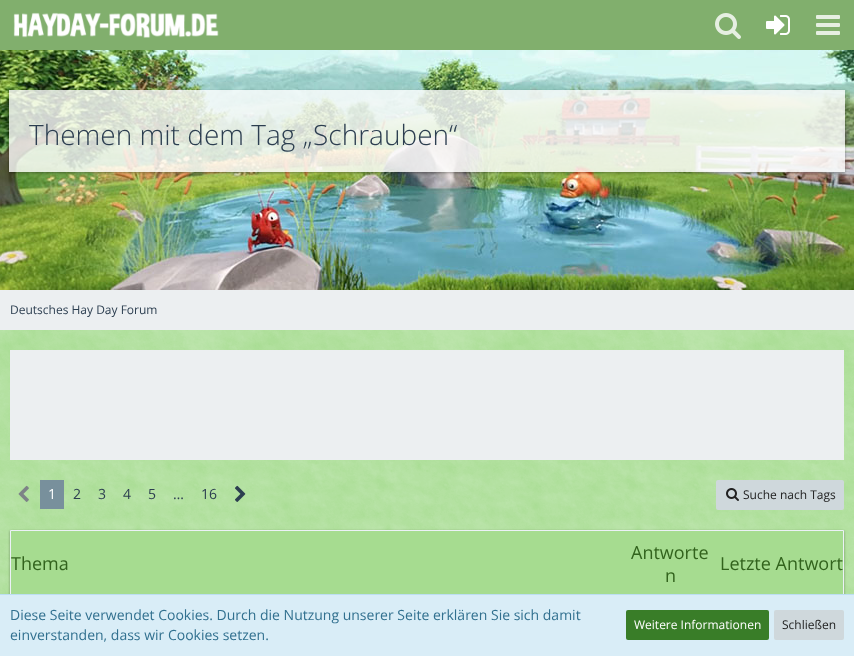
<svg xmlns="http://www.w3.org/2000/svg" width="854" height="656">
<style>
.a{font:300 28px Open Sans;fill:#2c3e50}
.b{font:14px Open Sans;fill:#fff}
.c{font:14px Open Sans;fill:#2c3e50}
.d{font:12px Open Sans;fill:#212121}
.e{font:18px Open Sans;fill:#32631d}
.f{font:12px Open Sans;fill:#2c3e50}
.g{font:14px Open Sans;fill:#31708f}
.h{font:12px Open Sans;fill:#fff}
</style>
<defs>
<clipPath id="clip1"><path d="M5 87h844v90h-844zm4 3h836v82h-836z" clip-rule="evenodd"/></clipPath>
<clipPath id="clip2"><path d="M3 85h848v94h-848zm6 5h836v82h-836z" clip-rule="evenodd"/></clipPath>
</defs>
<rect width="100%" height="100%" fill="#a6dc90"/>
<image href="1.png" x="0" y="330" width="854" height="264"/>
<path fill="#81af6d" d="M0 0h854v50H0z"/>
<image href="2.png" x="13" y="12" width="206" height="26"/>
<image href="3.png" x="715" y="13" width="26" height="26"/>
<image href="4.png" x="766" y="15" width="24" height="20"/>
<image href="5.png" x="816" y="15" width="24" height="20"/>
<image href="6.png" x="0" y="50" width="854" height="240"/>
<g clip-path="url(#clip1)">
<path fill="#0000003d" filter="blur(1px)" d="M9 91h836v82H9z"/>
</g>
<g clip-path="url(#clip2)">
<path fill="#0000001f" filter="blur(1.5px)" d="M9 91h836v82H9z"/>
</g>
<path fill="#ffffffcc" d="M9 90h836v82H9z"/>
<path fill="#eceff1" d="M10 350h834v110H10z"/>
<image href="7.png" x="18" y="485" width="11" height="17"/>
<path fill="#78909c" d="M40 480h24v29H40z"/>
<image href="8.png" x="235" y="485" width="11" height="17"/>
<rect fill="#cfd8dc" x="716" y="480" width="128" height="30" rx="2"/>
<image href="9.png" x="726" y="488" width="13" height="13"/>
<path fill="#0000003d" filter="blur(1px)" d="M10 531h834v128H10z"/>
<path fill="#0000001f" filter="blur(1.5px)" d="M10 531h834v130H10z"/>
<path fill="none" stroke="#ecf1f7" d="M10.5 530.5h833v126H10.5z"/>
<path fill="#a6dc90" d="M11 531h832v63H11z"/>
<path fill="#eceff1" d="M0 290h854v40H0z"/>
<path fill="#d9edf7" d="M0 595h854v61H0z"/>
<path fill="#bcdff1" d="M0 594h854v1H0z"/>
<rect fill="#397d28" x="626" y="610" width="143" height="30" rx="2"/>
<rect fill="#cfd8dc" x="774" y="610" width="70" height="30" rx="2"/>
<text class="a" x="29" y="145">Themen mit dem Tag „Schrauben“</text>
<text class="b" x="48" y="499">1</text>
<text class="c" x="73" y="499">2</text>
<text class="c" x="98" y="499">3</text>
<text class="c" x="123" y="499">4</text>
<text class="c" x="148" y="499">5</text>
<text class="c" x="173" y="499">…</text>
<text class="c" x="201" y="499">16</text>
<text class="d" x="743" y="499">Suche nach Tags</text>
<text class="e" x="11" y="570">Thema</text>
<text class="e" x="631" y="559">Antworte</text>
<text class="e" x="665" y="582">n</text>
<text class="e" x="720" y="570">Letzte Antwort</text>
<text class="f" x="10" y="314">Deutsches Hay Day Forum</text>
<text class="g" x="10" y="620">Diese Seite verwendet Cookies. Durch die Nutzung unserer Seite erklären Sie sich damit</text>
<text class="g" x="10" y="640">einverstanden, dass wir Cookies setzen.</text>
<text class="h" x="634" y="629">Weitere Informationen</text>
<text class="d" x="782" y="629">Schließen</text>
</svg>
